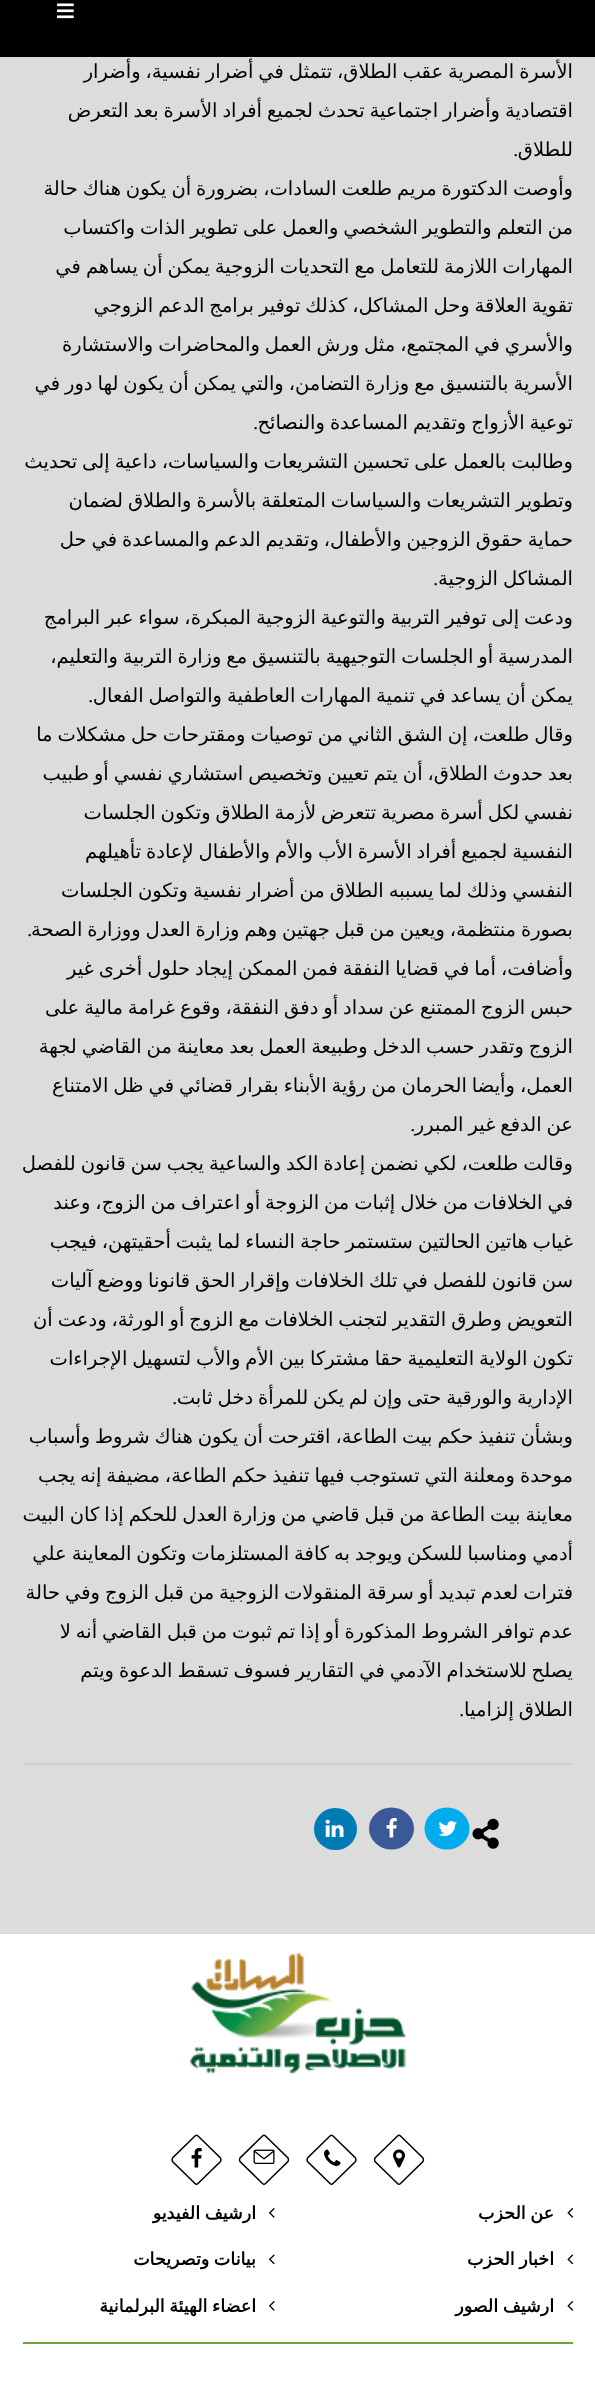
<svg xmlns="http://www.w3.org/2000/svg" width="595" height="2382">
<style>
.a{font:19.5px DejaVu Sans;direction:rtl;fill:#000}
.b{font:19.5px Liberation Serif;direction:rtl;fill:#000}
.c{font:bold 17.5px DejaVu Sans;direction:rtl;fill:#000}
</style>
<rect width="100%" height="100%" fill="#dcdcdc"/>
<path fill="#000" d="M0 0h595v57H0z"/>
<image href="1.png" x="57" y="3" width="17" height="16"/>
<path fill="#cfcfcf" d="M23 1763h550v2H23z"/>
<image href="2.png" x="472" y="1818" width="27" height="31"/>
<ellipse fill="#00aced" cx="447" cy="1828.5" rx="22.5" ry="21"/>
<image href="3.png" x="438" y="1821" width="19" height="15"/>
<ellipse fill="#3b5998" cx="391.5" cy="1828.5" rx="22.5" ry="21"/>
<image href="4.png" x="386" y="1818" width="11" height="20"/>
<rect fill="#007bb6" x="314" y="1808" width="43" height="42" rx="21"/>
<image href="5.png" x="325" y="1819" width="19" height="18"/>
<path fill="#fff" d="M0 1934h595v448H0z"/>
<image href="6.png" x="189" y="1952" width="218" height="122"/>
<path fill="none" stroke="#000" stroke-width="1.5" d="M400.5 2136l22.5 22c.5 1 .5 2.5 0 3.5l-22.5 22c-1 1-2 1-3 0l-22.5-22c-.5-1-.5-2.5 0-3.5l22.5-22c1-1 2-1 3 0z"/>
<image href="7.png" x="393" y="2149" width="12" height="19"/>
<path fill="none" stroke="#000" stroke-width="1.5" d="M333 2136l22.5 22c.5 1 .5 2.5 0 3.5l-22.5 22c-1 1-2 1-3 0l-22.5-22c-.5-1-.5-2.5 0-3.5l22.5-22c1-1 2-1 3 0z"/>
<image href="8.png" x="324" y="2149" width="17" height="17"/>
<path fill="none" stroke="#000" stroke-width="1.5" d="M265.5 2136l22.5 22c.5 1 .5 2.5 0 3.5l-22.5 22c-1 1-2 1-3 0l-22.5-22c-.5-1-.5-2.5 0-3.5l22.5-22c1-1 2-1 3 0z"/>
<image href="9.png" x="253" y="2149" width="22" height="15"/>
<path fill="none" stroke="#000" stroke-width="1.5" d="M198 2136l22.5 22c.5 1 .5 2.5 0 3.5l-22.5 22c-1 1-2 1-3 0l-22.5-22c-.5-1-.5-2.5 0-3.5l22.5-22c1-1 2-1 3 0z"/>
<image href="10.png" x="191" y="2148" width="11" height="20"/>
<image href="11.png" x="567" y="2208" width="7" height="10"/>
<image href="12.png" x="567" y="2254" width="7" height="11"/>
<image href="11.png" x="567" y="2301" width="7" height="10"/>
<image href="13.png" x="269" y="2208" width="6" height="10"/>
<image href="14.png" x="269" y="2254" width="6" height="11"/>
<image href="13.png" x="269" y="2301" width="6" height="10"/>
<path fill="#65a636" d="M23 2342h550v2H23z"/>
<text class="a" x="573" y="78" word-spacing="-1.25">الأسرة المصرية عقب الطلاق، تتمثل في أضرار نفسية، وأضرار</text>
<text class="a" x="573" y="117" word-spacing="-1.25">اقتصادية وأضرار اجتماعية تحدث لجميع أفراد الأسرة بعد التعرض</text>
<text class="a" x="573" y="156">للطلاق</text>
<text class="b" x="518" y="156">.</text>
<text class="a" x="573" y="195" word-spacing="-1.25">وأوصت الدكتورة مريم طلعت السادات، بضرورة أن يكون هناك حالة</text>
<text class="a" x="573" y="234" word-spacing="-1.25">من التعلم والتطوير الشخصي والعمل على تطوير الذات واكتساب</text>
<text class="a" x="573" y="273" word-spacing="-1.25">المهارات اللازمة للتعامل مع التحديات الزوجية يمكن أن يساهم في</text>
<text class="a" x="573" y="312" word-spacing="-1.25">تقوية العلاقة وحل المشاكل، كذلك توفير برامج الدعم الزوجي</text>
<text class="a" x="573" y="351" word-spacing="-1.25">والأسري في المجتمع، مثل ورش العمل والمحاضرات والاستشارة</text>
<text class="a" x="573" y="390" word-spacing="-1.25">الأسرية بالتنسيق مع وزارة التضامن، والتي يمكن أن يكون لها دور في</text>
<text class="a" x="573" y="429" word-spacing="-1.25">توعية الأزواج وتقديم المساعدة والنصائح</text>
<text class="b" x="258" y="429">.</text>
<text class="a" x="573" y="468" word-spacing="-1.25">وطالبت بالعمل على تحسين التشريعات والسياسات، داعية إلى تحديث</text>
<text class="a" x="573" y="507" word-spacing="-1.25">وتطوير التشريعات والسياسات المتعلقة بالأسرة والطلاق لضمان</text>
<text class="a" x="573" y="546" word-spacing="-1.25">حماية حقوق الزوجين والأطفال، وتقديم الدعم والمساعدة في حل</text>
<text class="a" x="573" y="585" word-spacing="-1.25">المشاكل الزوجية</text>
<text class="b" x="438" y="585">.</text>
<text class="a" x="573" y="624" word-spacing="-1.25">ودعت إلى توفير التربية والتوعية الزوجية المبكرة، سواء عبر البرامج</text>
<text class="a" x="573" y="663" word-spacing="-1.25">المدرسية أو الجلسات التوجيهية بالتنسيق مع وزارة التربية والتعليم،</text>
<text class="a" x="573" y="702" word-spacing="-1.25">يمكن أن يساعد في تنمية المهارات العاطفية والتواصل الفعال</text>
<text class="b" x="93" y="702">.</text>
<text class="a" x="573" y="741" word-spacing="-1.25">وقال طلعت، إن الشق الثاني من توصيات ومقترحات حل مشكلات ما</text>
<text class="a" x="573" y="780" word-spacing="-1.25">بعد حدوث الطلاق، أن يتم تعيين وتخصيص استشاري نفسي أو طبيب</text>
<text class="a" x="573" y="819" word-spacing="-1.25">نفسي لكل أسرة مصرية تتعرض لأزمة الطلاق وتكون الجلسات</text>
<text class="a" x="573" y="858" word-spacing="-1.25">النفسية لجميع أفراد الأسرة الأب والأم والأطفال لإعادة تأهيلهم</text>
<text class="a" x="573" y="897" word-spacing="-1.25">النفسي وذلك لما يسببه الطلاق من أضرار نفسية وتكون الجلسات</text>
<text class="a" x="573" y="936" word-spacing="-1.25">بصورة منتظمة، ويعين من قبل جهتين وهم وزارة العدل ووزارة الصحة</text>
<text class="b" x="32" y="936">.</text>
<text class="a" x="573" y="975" word-spacing="-1.25">وأضافت، أما في قضايا النفقة فمن الممكن إيجاد حلول أخرى غير</text>
<text class="a" x="573" y="1014" word-spacing="-1.25">حبس الزوج الممتنع عن سداد أو دفق النفقة، وقوع غرامة مالية على</text>
<text class="a" x="573" y="1053" word-spacing="-1.25">الزوج وتقدر حسب الدخل وطبيعة العمل بعد معاينة من القاضي لجهة</text>
<text class="a" x="573" y="1092" word-spacing="-1.25">العمل، وأيضا الحرمان من رؤية الأبناء بقرار قضائي في ظل الامتناع</text>
<text class="a" x="573" y="1131" word-spacing="-1.25">عن الدفع غير المبرر</text>
<text class="b" x="415" y="1131">.</text>
<text class="a" x="573" y="1170" word-spacing="-1.25">وقالت طلعت، لكي نضمن إعادة الكد والساعية يجب سن قانون للفصل</text>
<text class="a" x="573" y="1209" word-spacing="-1.25">في الخلافات من خلال إثبات من الزوجة أو اعتراف من الزوج، وعند</text>
<text class="a" x="573" y="1248" word-spacing="-1.25">غياب هاتين الحالتين ستستمر حاجة النساء لما يثبت أحقيتهن، فيجب</text>
<text class="a" x="573" y="1287" word-spacing="-1.25">سن قانون للفصل في تلك الخلافات وإقرار الحق قانونا ووضع آليات</text>
<text class="a" x="573" y="1326" word-spacing="-1.25">التعويض وطرق التقدير لتجنب الخلافات مع الزوج أو الورثة، ودعت أن</text>
<text class="a" x="573" y="1365" word-spacing="-1.25">تكون الولاية التعليمية حقا مشتركا بين الأم والأب لتسهيل الإجراءات</text>
<text class="a" x="573" y="1404" word-spacing="-1.25">الإدارية والورقية حتى وإن لم يكن للمرأة دخل ثابت</text>
<text class="b" x="177" y="1404">.</text>
<text class="a" x="573" y="1443" word-spacing="-1.25">وبشأن تنفيذ حكم بيت الطاعة، اقترحت أن يكون هناك شروط وأسباب</text>
<text class="a" x="573" y="1482" word-spacing="-1.25">موحدة ومعلنة التي تستوجب فيها تنفيذ حكم الطاعة، مضيفة إنه يجب</text>
<text class="a" x="573" y="1521" word-spacing="-1.25">معاينة بيت الطاعة من قبل قاضي من وزارة العدل للحكم إذا كان البيت</text>
<text class="a" x="573" y="1560" word-spacing="-1.25">أدمي ومناسبا للسكن ويوجد به كافة المستلزمات وتكون المعاينة علي</text>
<text class="a" x="573" y="1599" word-spacing="-1.25">فترات لعدم تبديد أو سرقة المنقولات الزوجية من قبل الزوج وفي حالة</text>
<text class="a" x="573" y="1638" word-spacing="-1.25">عدم توافر الشروط المذكورة أو إذا تم ثبوت من قبل القاضي أنه لا</text>
<text class="a" x="573" y="1677" word-spacing="-1.25">يصلح للاستخدام الآدمي في التقارير فسوف تسقط الدعوة ويتم</text>
<text class="a" x="573" y="1716" word-spacing="-1.25">الطلاق إلزاميا</text>
<text class="b" x="464" y="1716">.</text>
<text class="c" x="554" y="2219" word-spacing="-1">عن الحزب</text>
<text class="c" x="554" y="2265" word-spacing="-1">اخبار الحزب</text>
<text class="c" x="554" y="2312" word-spacing="-1">ارشيف الصور</text>
<text class="c" x="256" y="2219" word-spacing="-1">ارشيف الفيديو</text>
<text class="c" x="256" y="2265" word-spacing="-1">بيانات وتصريحات</text>
<text class="c" x="256" y="2312" word-spacing="-1">اعضاء الهيئة البرلمانية</text>
</svg>
